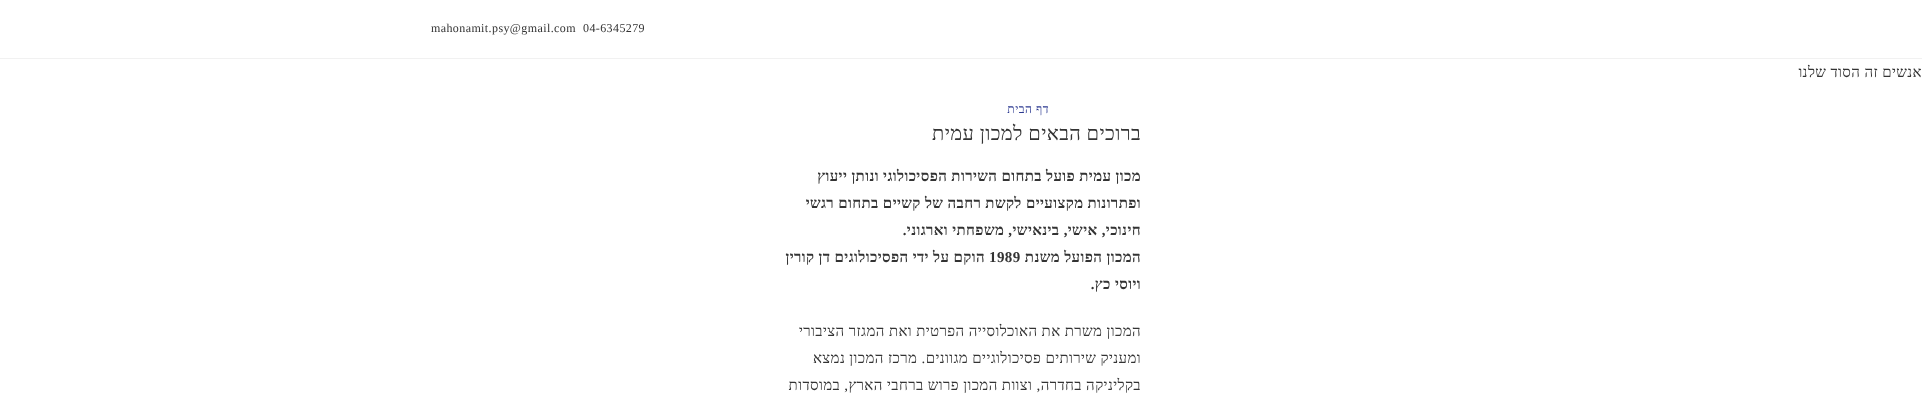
<svg xmlns="http://www.w3.org/2000/svg" width="1922" height="397">
<style>
.a{font:12px Liberation Serif;letter-spacing:0.4px;fill:#333}
.b{font:15px Liberation Serif;letter-spacing:0.4px;direction:rtl;fill:#333}
.c{font:20px Liberation Serif;letter-spacing:0.4px;direction:rtl;fill:#333}
.d{font:bold 15px Liberation Serif;letter-spacing:0.4px;direction:rtl;fill:#333}
.e{font:bold 15px Liberation Serif;letter-spacing:0.4px;fill:#333}
.f{font:12px Liberation Serif;letter-spacing:0.5px;direction:rtl;fill:#2b3990}
</style>
<rect width="100%" height="100%" fill="#fff"/>
<path fill="#f1f1f1" d="M0 58h1922v1H0z"/>
<text class="a" x="583" y="32">04-6345279</text>
<text class="a" x="431" y="32">mahonamit.psy@gmail.com</text>
<text class="b" x="1922" y="77">אנשים זה הסוד שלנו</text>
<text class="c" x="1141" y="140">ברוכים הבאים למכון עמית</text>
<text class="d" x="1141" y="181">מכון עמית פועל בתחום השירות הפסיכולוגי ונותן ייעוץ</text>
<text class="d" x="1141" y="208">ופתרונות מקצועיים לקשת רחבה של קשיים בתחום רגשי</text>
<text class="d" x="1141" y="235">חינוכי, אישי, בינאישי, משפחתי וארגוני.</text>
<text class="d" x="1141" y="262">המכון הפועל</text>
<text class="d" x="1060" y="262">משנת</text>
<text class="e" x="989" y="262">1989</text>
<text class="d" x="985" y="262">הוקם על ידי הפסיכולוגים דן קורין</text>
<text class="d" x="1141" y="289">ויוסי כץ.</text>
<text class="b" x="1141" y="336">המכון משרת את האוכלוסייה הפרטית ואת המגזר הציבורי</text>
<text class="b" x="1141" y="363">ומעניק שירותים פסיכולוגיים מגוונים. מרכז המכון נמצא</text>
<text class="b" x="1141" y="390">בקליניקה בחדרה, וצוות המכון פרוש ברחבי הארץ, במוסדות</text>
<text class="f" x="1049" y="113">דף הבית</text>
</svg>
